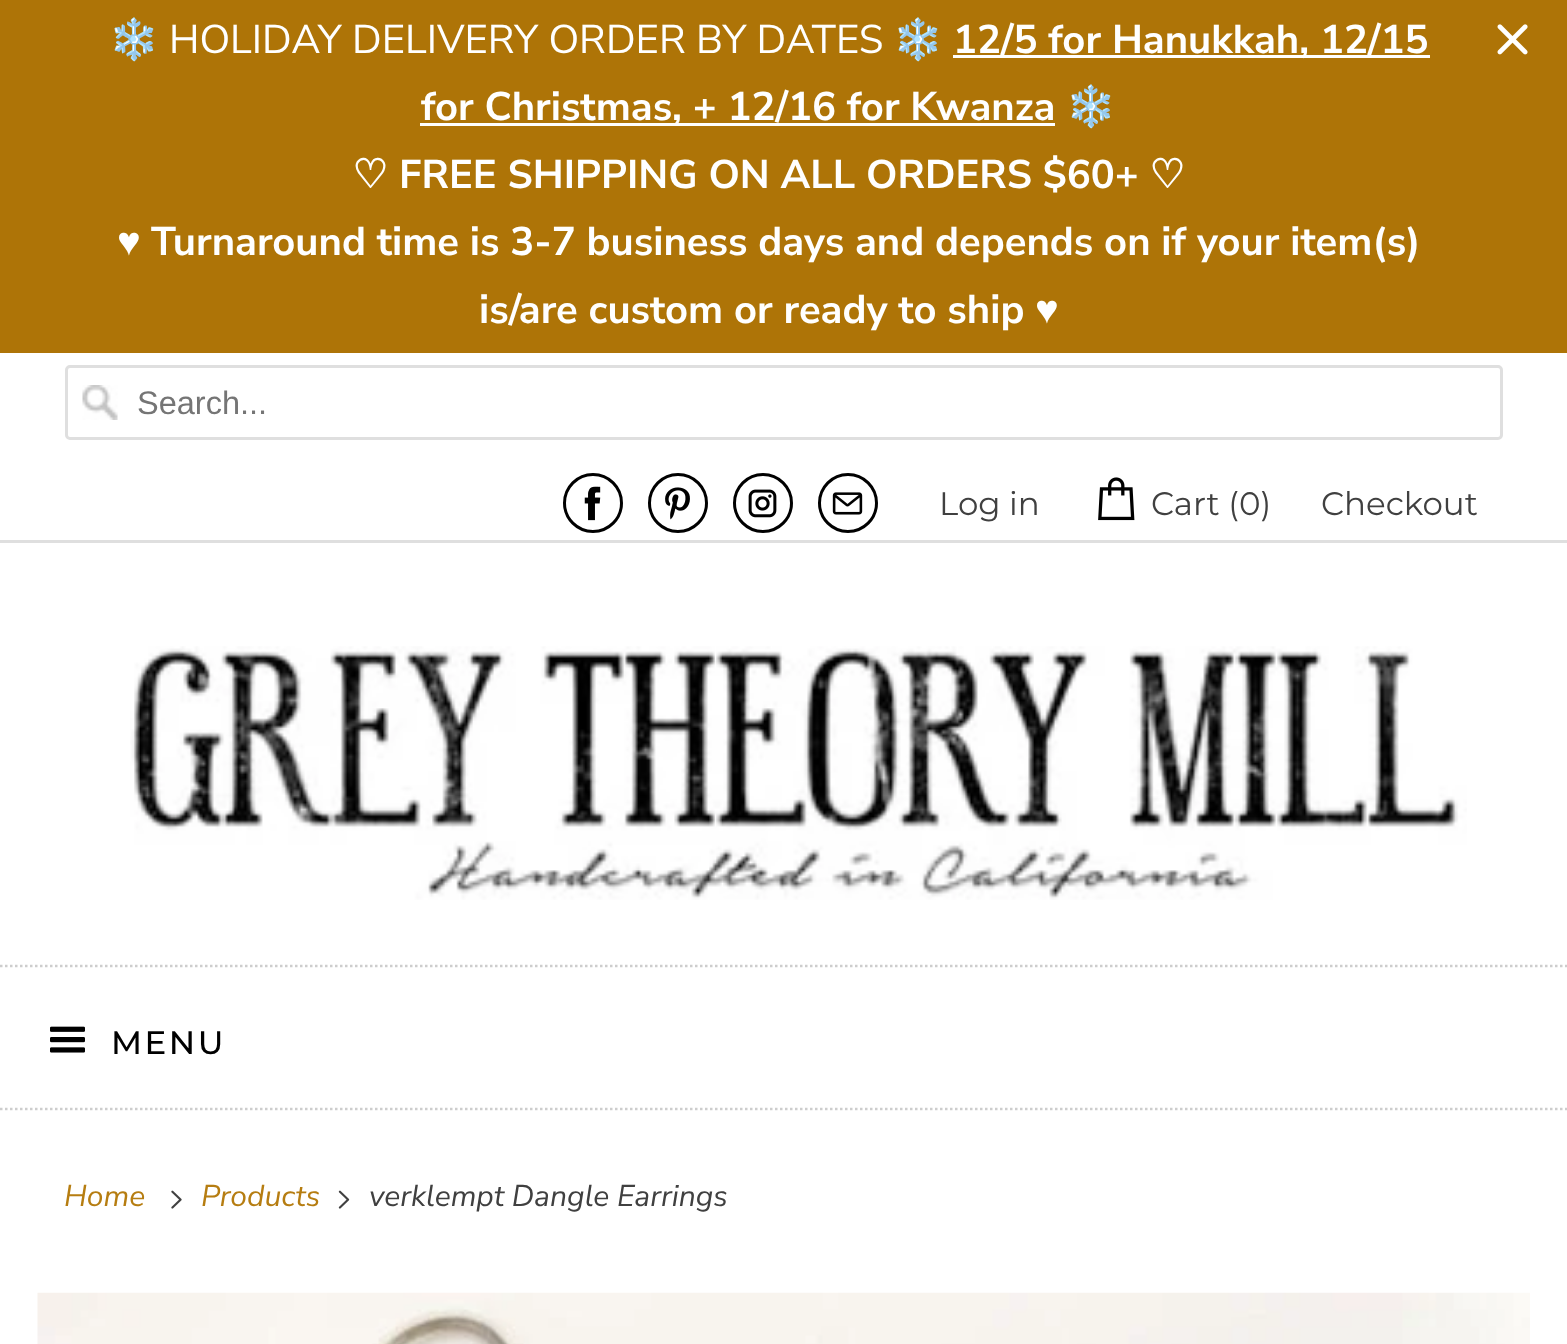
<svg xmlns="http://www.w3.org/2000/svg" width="1567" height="1344">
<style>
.a{font:40px Noto Color Emoji;fill:#fff}
.b{font:40px Nunito Sans;fill:#fff}
.c{font:bold 40px Nunito Sans;fill:#fff}
.d{font:bold 40px Noto Color Emoji;fill:#fff}
.e{font:bold 40px DejaVu Sans;fill:#fff}
.f{font:bold 40px Liberation Sans;fill:#fff}
.g{font:32.5px Liberation Sans;fill:#757575}
.h{font:32.5px Montserrat;fill:#404040}
.i{font:500 32.5px Montserrat;letter-spacing:2.5px;fill:#000}
.j{font:italic 30px Nunito Sans;fill:#b67d11}
.k{font:italic 30px Nunito Sans;fill:#404040}
</style>
<rect width="100%" height="100%" fill="#fff"/>
<path fill="#ae7407" d="M0 0h1567v353H0z"/>
<path fill="#fff" d="M953 55h477v3H953z"/>
<path fill="#fff" d="M420 123h635v3H420z"/>
<image href="1.png" x="1497" y="24" width="31" height="31"/>
<path fill="#dfdfdf" d="M0 540h1567v3H0z"/>
<image href="2.png" x="82" y="385" width="36" height="35"/>
<rect fill="none" stroke="#dfdfdf" stroke-width="3" x="66.5" y="366.5" width="1435" height="72" rx="3.5"/>
<circle fill="none" stroke="#000" stroke-width="3" cx="593" cy="503" r="28.5"/>
<image href="3.png" x="584" y="486" width="17" height="35"/>
<circle fill="none" stroke="#000" stroke-width="3" cx="678" cy="503" r="28.5"/>
<image href="4.png" x="665" y="487" width="25" height="33"/>
<circle fill="none" stroke="#000" stroke-width="3" cx="763" cy="503" r="28.5"/>
<image href="5.png" x="748" y="489" width="29" height="29"/>
<circle fill="none" stroke="#000" stroke-width="3" cx="848" cy="503" r="28.5"/>
<image href="6.png" x="832" y="492" width="31" height="23"/>
<image href="7.png" x="1098" y="477" width="37" height="44"/>
<image href="8.png" x="130" y="646" width="1337" height="254"/>
<path fill="none" stroke="#cdcdcd" stroke-width="2.5" stroke-dasharray="2.5 2.5" d="M0 966h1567.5"/>
<path fill="none" stroke="#cdcdcd" stroke-width="2.5" stroke-dasharray="2.5 2.5" d="M0 1109h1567.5"/>
<image href="9.png" x="50" y="1026" width="35" height="27"/>
<image href="10.png" x="171" y="1190" width="11" height="19"/>
<image href="11.png" x="338" y="1190" width="12" height="19"/>
<image href="12.png" x="37" y="1292" width="1493" height="52"/>
<text class="a" x="109" y="53">❄️</text>
<text class="b" x="169" y="53">HOLIDAY DELIVERY ORDER BY DATES</text>
<text class="a" x="893" y="53">❄️</text>
<text class="c" x="953" y="53">12/5 for Hanukkah, 12/15</text>
<text class="c" x="421" y="120">for Christmas, + 12/16 for Kwanza</text>
<text class="d" x="1066" y="120">❄️</text>
<text class="e" x="352" y="188">♡</text>
<text class="c" x="399" y="188">FREE SHIPPING ON ALL ORDERS $60+</text>
<text class="e" x="1149" y="188">♡</text>
<text class="f" x="117" y="255">♥︎</text>
<text class="c" x="151" y="255">Turnaround time is 3-7 business days and depends on if your item(s)</text>
<text class="c" x="479" y="323">is/are custom or ready to ship</text>
<text class="f" x="1035" y="323">♥︎</text>
<text class="g" x="137" y="414">Search...</text>
<text class="h" x="939" y="515">Log in</text>
<text class="h" x="1151" y="515">Cart (0)</text>
<text class="h" x="1321" y="515">Checkout</text>
<text class="i" x="111" y="1054">MENU</text>
<text class="j" x="64" y="1206">Home</text>
<text class="j" x="201" y="1206">Products</text>
<text class="k" x="369" y="1206">verklempt Dangle Earrings</text>
</svg>
